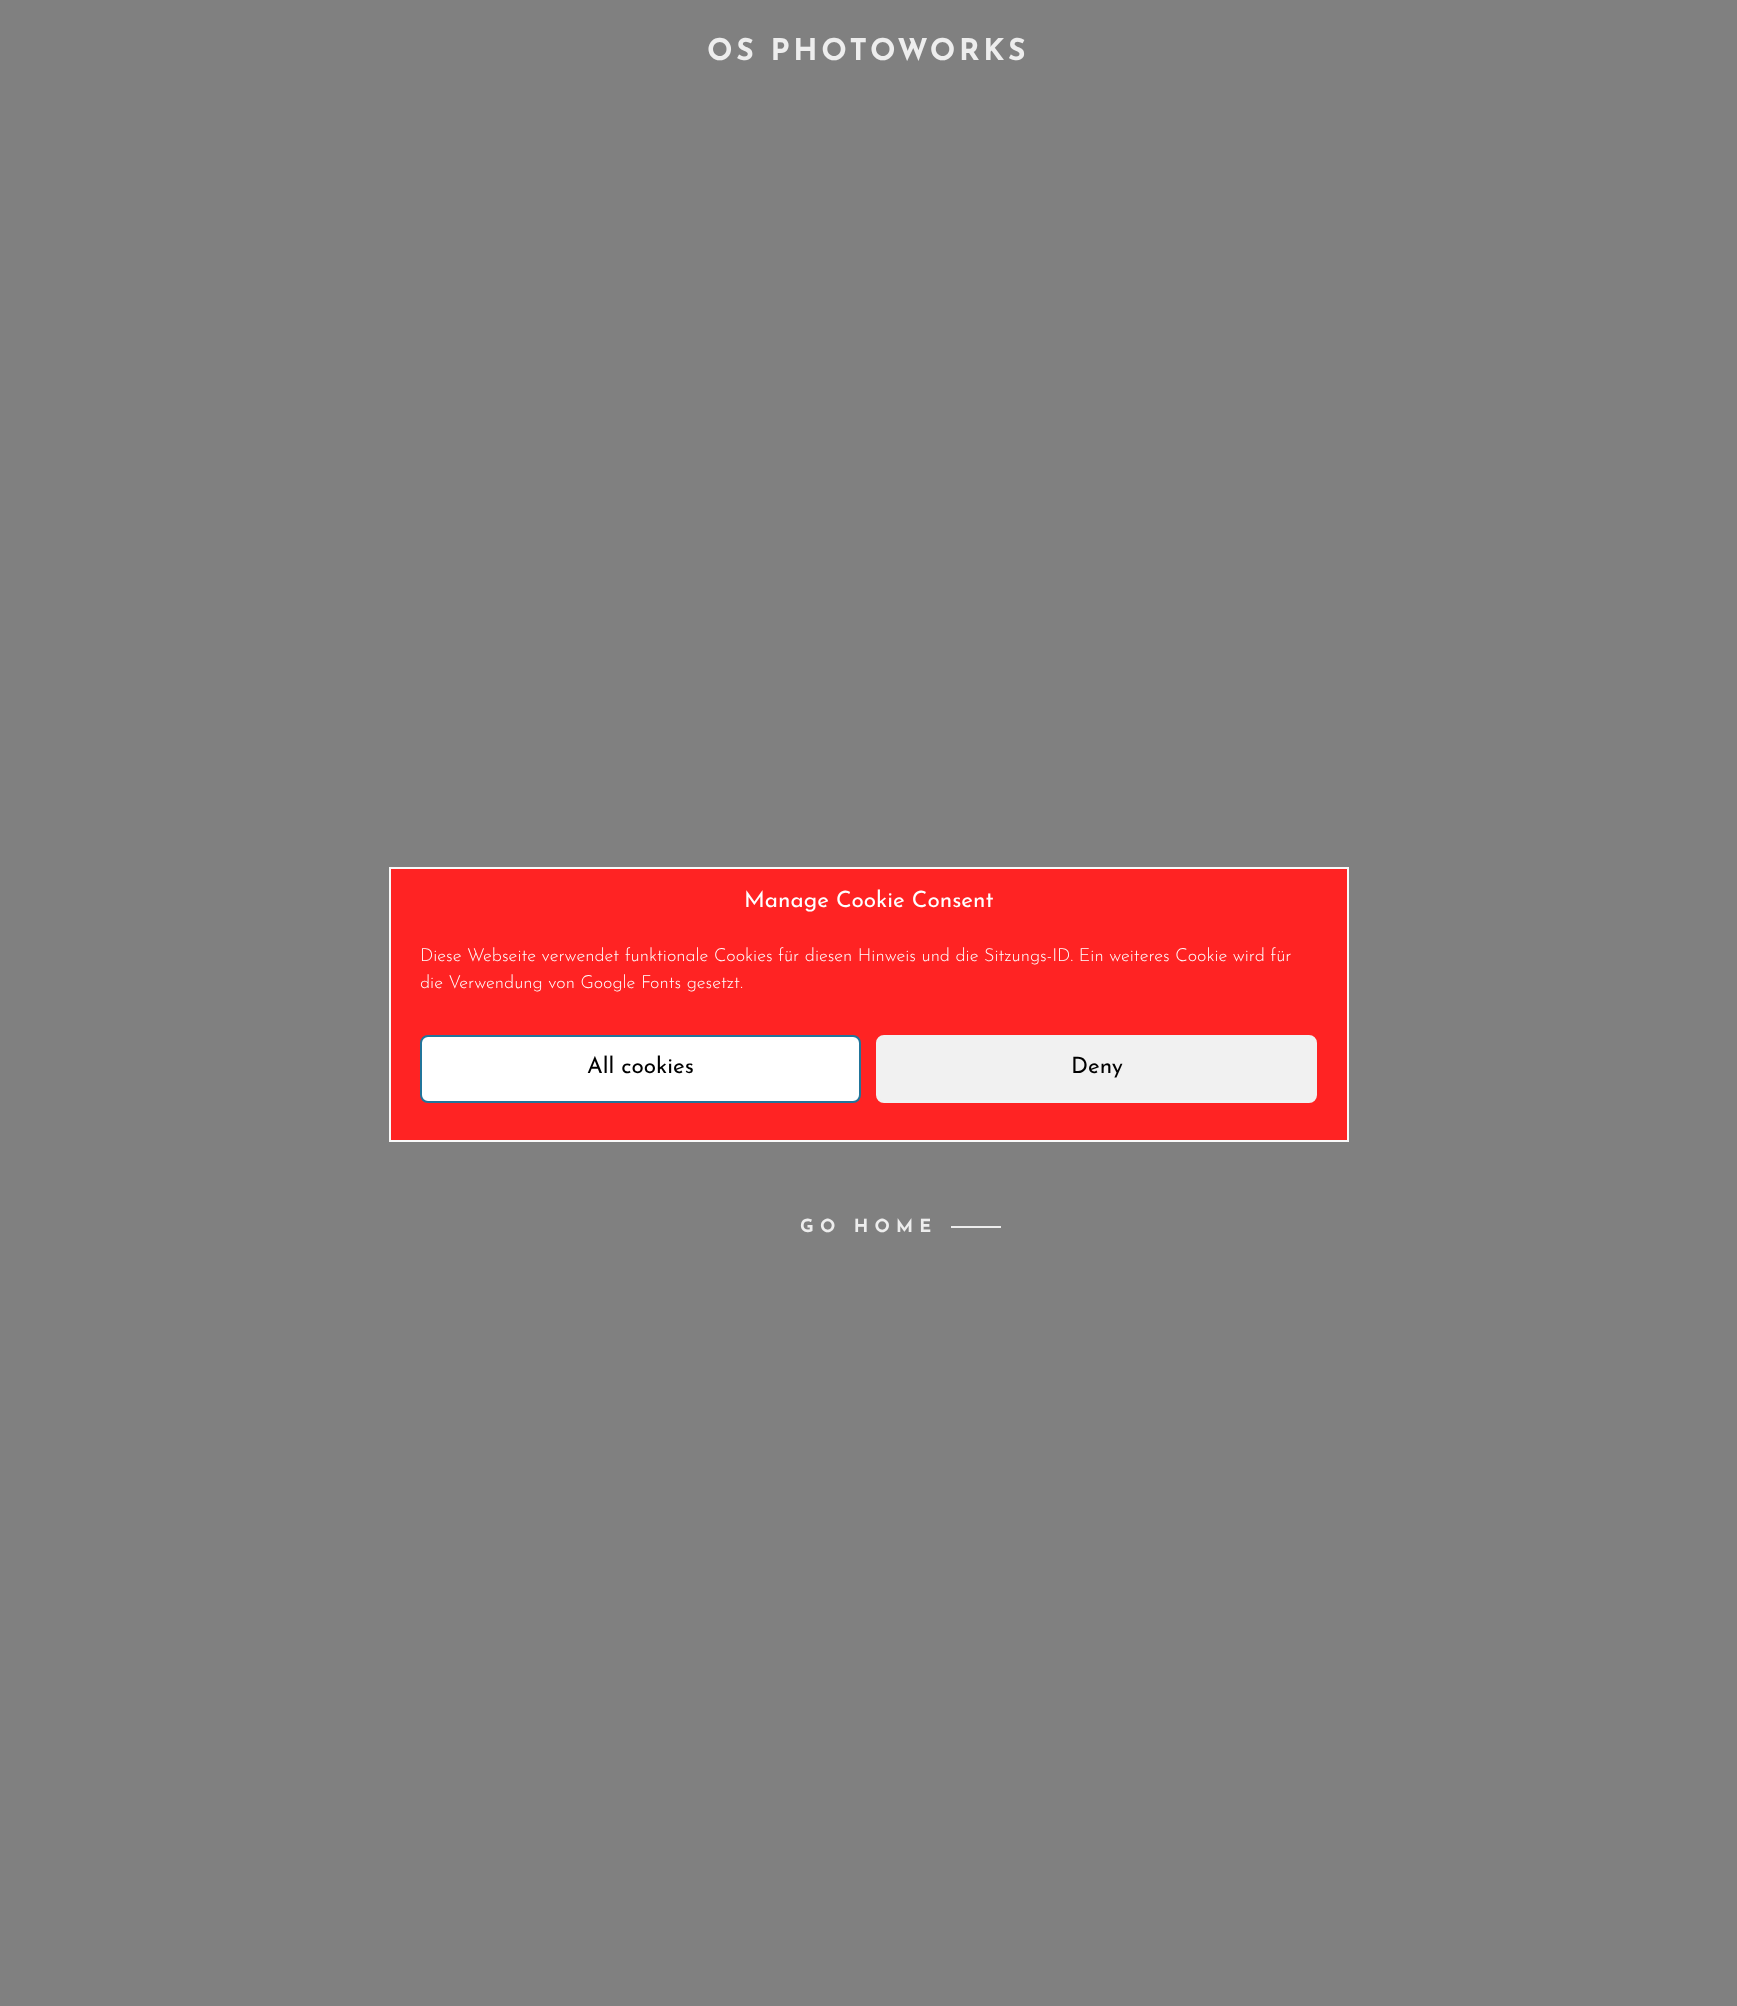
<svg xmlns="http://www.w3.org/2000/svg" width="1737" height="2006">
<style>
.a{font:bold 30px Josefin Sans;letter-spacing:3.6px;fill:#ededed}
.b{font:bold 18px Josefin Sans;letter-spacing:6.25px;fill:#ededed}
.c{font:22.5px Josefin Sans;fill:#fff}
.d{font:300 18px Josefin Sans;fill:#fff}
.e{font:22.5px Josefin Sans;fill:#000}
</style>
<rect width="100%" height="100%" fill="#808080"/>
<path fill="#ededed" d="M951 1226h50v2H951z"/>
<path fill="#ff2323" stroke="#f9f9f9" stroke-width="2" d="M390 868h958v273H390z"/>
<rect fill="#fff" stroke="#21759b" stroke-width="2" x="421" y="1036" width="439" height="66" rx="7"/>
<rect fill="#f1f1f1" stroke="#f1f1f1" stroke-width="2" x="877" y="1036" width="439" height="66" rx="7"/>
<text class="a" x="707" y="60">OS PHOTOWORKS</text>
<text class="b" x="800" y="1232">GO HOME</text>
<text class="c" x="744" y="907">Manage Cookie Consent</text>
<text class="d" x="420" y="961">Diese Webseite verwendet funktionale Cookies für diesen Hinweis und die Sitzungs-ID. Ein weiteres Cookie wird für</text>
<text class="d" x="420" y="988">die Verwendung von Google Fonts gesetzt.</text>
<text class="e" x="587" y="1073">All cookies</text>
<text class="e" x="1071" y="1073">Deny</text>
</svg>
